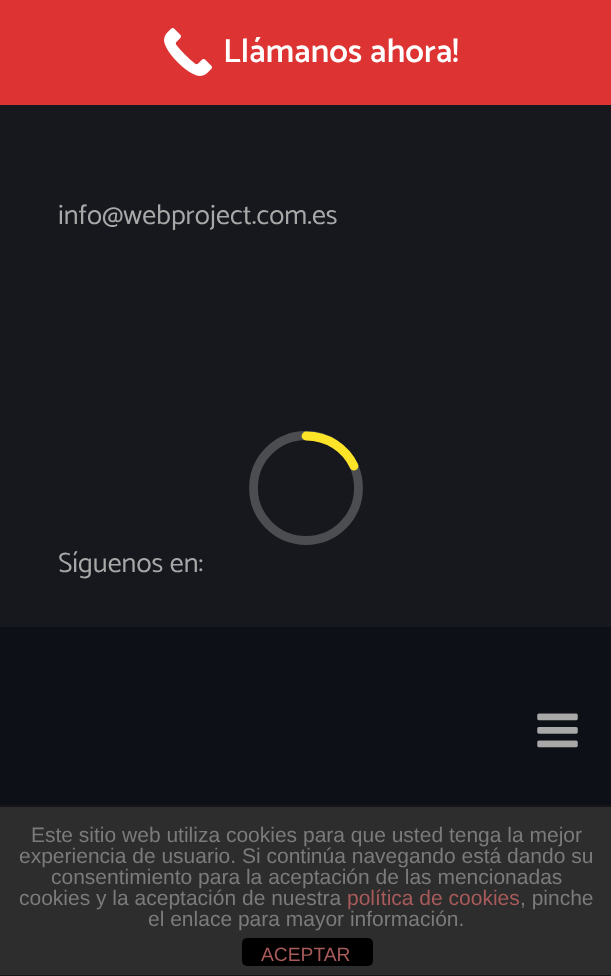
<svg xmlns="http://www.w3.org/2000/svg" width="611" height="976">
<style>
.a{font:600 33.5px Catamaran;fill:#fff}
.b{font:28px Catamaran;fill:#a8a8a8}
.c{font:21px Liberation Sans;fill:#7b7b7b}
.d{font:21px Liberation Sans;fill:#a85a5a}
.e{font:19.25px Liberation Sans;fill:#a85a5a}
</style>
<rect width="100%" height="100%" fill="#16181e"/>
<path fill="#d33" d="M0 0h611v105H0z"/>
<image href="1.png" x="164" y="28" width="48" height="48"/>
<path fill="#0e1017" d="M0 627h611v178H0z"/>
<image href="2.png" x="537" y="713" width="41" height="35"/>
<circle fill="none" stroke="#4b4d51" stroke-width="8.8" cx="306" cy="488" r="52.5"/>
<path fill="none" stroke="#fde428" stroke-width="8.8" stroke-linecap="round" d="M306 436c21.5 0 39.5 12 48 30"/>
<path fill="#2d2d2d" d="M0 807h611v168H0z"/>
<path fill="#161616" d="M0 805h611v2H0z"/>
<path fill="#161616" d="M0 975h611v1H0z"/>
<rect fill="#000" x="242" y="938" width="131" height="28" rx="5"/>
<text class="a" x="223" y="62">Llámanos ahora!</text>
<text class="b" x="58" y="224">info@webproject.com.es</text>
<text class="b" x="58" y="572">Síguenos en:</text>
<text class="c" x="31" y="842">Este sitio web utiliza cookies para que usted tenga la mejor</text>
<text class="c" x="19" y="863">experiencia de usuario. Si continúa navegando está dando su</text>
<text class="c" x="51" y="884">consentimiento para la aceptación de las mencionadas</text>
<text class="c" x="19" y="905">cookies y la aceptación de nuestra</text>
<text class="d" x="347" y="905">política de cookies</text>
<text class="c" x="520" y="905">, pinche</text>
<text class="c" x="148" y="926">el enlace para mayor información.</text>
<text class="e" x="261" y="961">ACEPTAR</text>
</svg>
